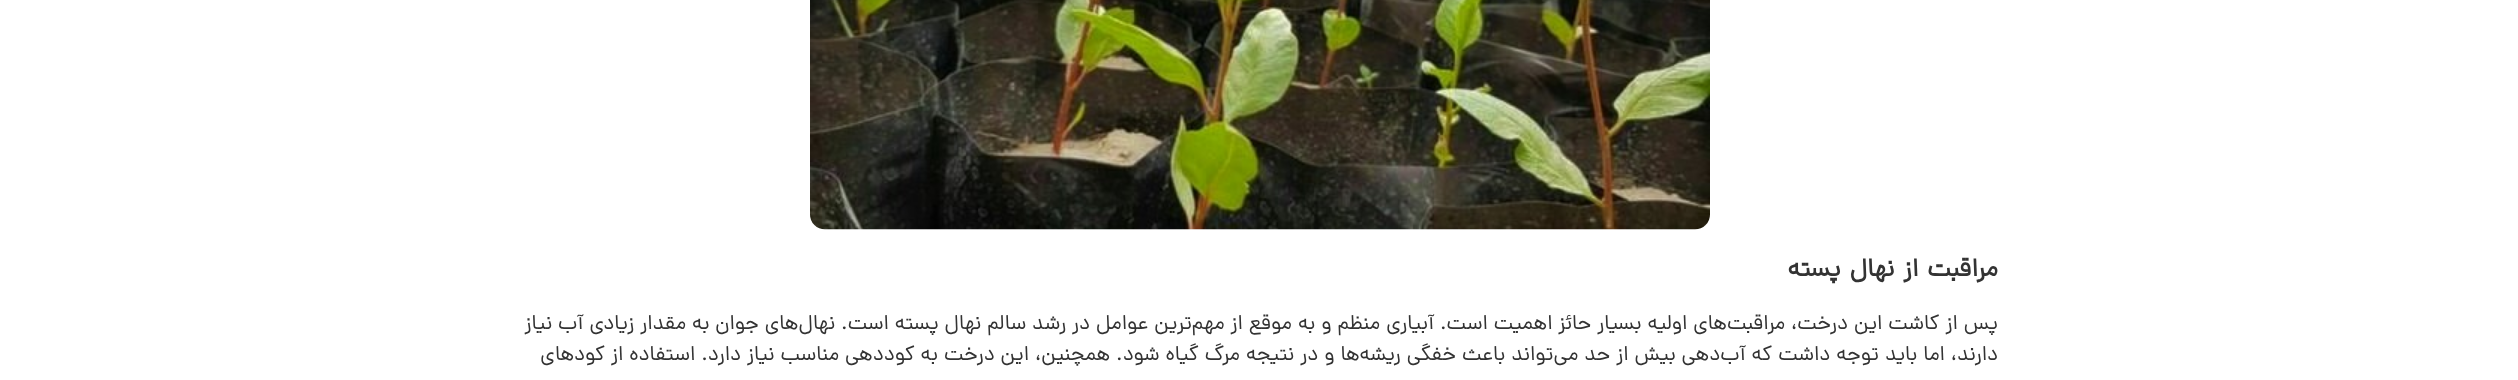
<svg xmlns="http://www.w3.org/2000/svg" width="2518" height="380">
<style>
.a{font:bold 25.5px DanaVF;direction:rtl;fill:#333}
.b{font:21px DanaVF;direction:rtl;fill:#333}
</style>
<rect width="100%" height="100%" fill="#fff"/>
<image href="1.png" x="810" y="0" width="900" height="230"/>
<text class="a" x="1998" y="276" word-spacing="2.5">مراقبت از نهال پسته</text>
<text class="b" x="1998" y="329" word-spacing="0.55">پس از کاشت این درخت، مراقبت‌های اولیه بسیار حائز اهمیت است. آبیاری منظم و به موقع از مهم‌ترین عوامل در رشد سالم نهال پسته است. نهال‌های جوان به مقدار زیادی آب نیاز</text>
<text class="b" x="1998" y="360" word-spacing="0.55">دارند، اما باید توجه داشت که آب‌دهی بیش از حد می‌تواند باعث خفگی ریشه‌ها و در نتیجه مرگ گیاه شود. همچنین، این درخت به کوددهی مناسب نیاز دارد. استفاده از کودهای</text>
</svg>
